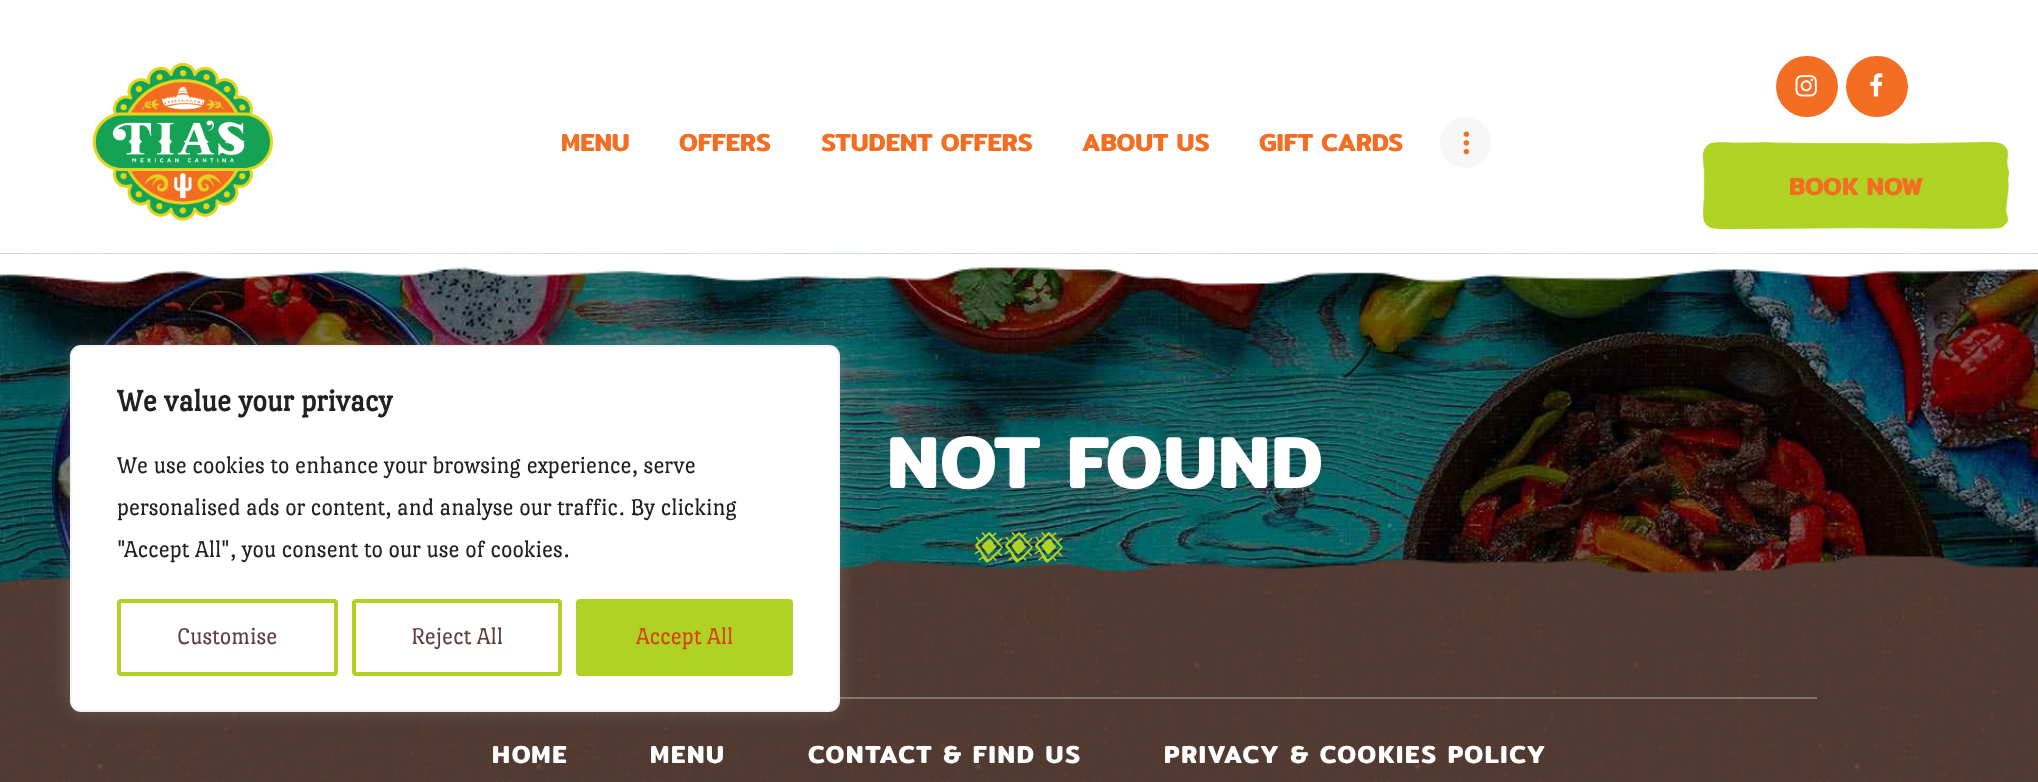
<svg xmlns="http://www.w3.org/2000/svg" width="2038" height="782">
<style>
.a{font:bold 31.5px Port Lligat Slab;fill:#212121}
.b{font:24.5px Port Lligat Slab;fill:#212121}
.c{font:24.5px Port Lligat Slab;fill:#613e3e}
.d{font:24.5px Port Lligat Slab;fill:#da3d07}
.e{font:600 24.9px Mitr;fill:#f36e22}
.f{font:600 74.75px Mitr;letter-spacing:0.9px;fill:#fff}
.g{font:600 24.9px Mitr;letter-spacing:1.75px;fill:#fff}
</style>
<rect width="100%" height="100%" fill="#fff"/>
<image href="6.png" x="0" y="253" width="2038" height="332"/>
<image href="9.png" x="0" y="589" width="2038" height="193"/>
<image href="8.png" x="974" y="532" width="89" height="31"/>
<image href="10.png" x="0" y="554" width="2038" height="36"/>
<path fill="#83736d" d="M840 697h977v2H840z"/>
<rect fill="#acabab4d" filter="blur(9px)" x="70" y="343" width="770" height="368" rx="11"/>
<rect fill="#fff" stroke="#f4f4f4" stroke-width="2" x="71" y="346" width="768" height="365" rx="10"/>
<rect fill="none" stroke="#b0d225" stroke-width="4" x="119" y="601" width="217" height="73" rx="2"/>
<rect fill="none" stroke="#b0d225" stroke-width="4" x="354" y="601" width="206" height="73" rx="2"/>
<rect fill="#b0d225" stroke="#b0d225" stroke-width="4" x="578" y="601" width="213" height="73" rx="2"/>
<image href="1.png" x="92" y="63" width="181" height="158"/>
<circle fill="#f7f7f7" cx="1465.5" cy="142.5" r="25.5"/>
<image href="2.png" x="1463" y="131" width="7" height="24"/>
<rect fill="#f36e22" x="1776" y="56" width="62" height="61" rx="30.5"/>
<image href="3.png" x="1795" y="75" width="22" height="22"/>
<rect fill="#f36e22" x="1846" y="56" width="62" height="61" rx="30.5"/>
<image href="4.png" x="1870" y="73" width="13" height="24"/>
<image href="5.png" x="1702" y="141" width="307" height="89"/>
<image href="7.png" x="0" y="253" width="2038" height="33"/>
<text class="a" x="117" y="411">We value your privacy</text>
<text class="b" x="117" y="473">We use cookies to enhance your browsing experience, serve</text>
<text class="b" x="117" y="515">personalised ads or content, and analyse our traffic. By clicking</text>
<text class="b" x="117" y="557">"Accept All", you consent to our use of cookies.</text>
<text class="c" x="177" y="644">Customise</text>
<text class="c" x="411" y="644">Reject All</text>
<text class="d" x="636" y="644">Accept All</text>
<text class="e" x="561" y="151">MENU</text>
<text class="e" x="679" y="151">OFFERS</text>
<text class="e" x="821" y="151">STUDENT OFFERS</text>
<text class="e" x="1082" y="151">ABOUT US</text>
<text class="e" x="1259" y="151">GIFT CARDS</text>
<text class="e" x="1789" y="195">BOOK NOW</text>
<text class="f" x="887" y="488">NOT FOUND</text>
<text class="g" x="492" y="763">HOME</text>
<text class="g" x="650" y="763">MENU</text>
<text class="g" x="808" y="763">CONTACT &amp; FIND US</text>
<text class="g" x="1164" y="763">PRIVACY &amp; COOKIES POLICY</text>
</svg>
